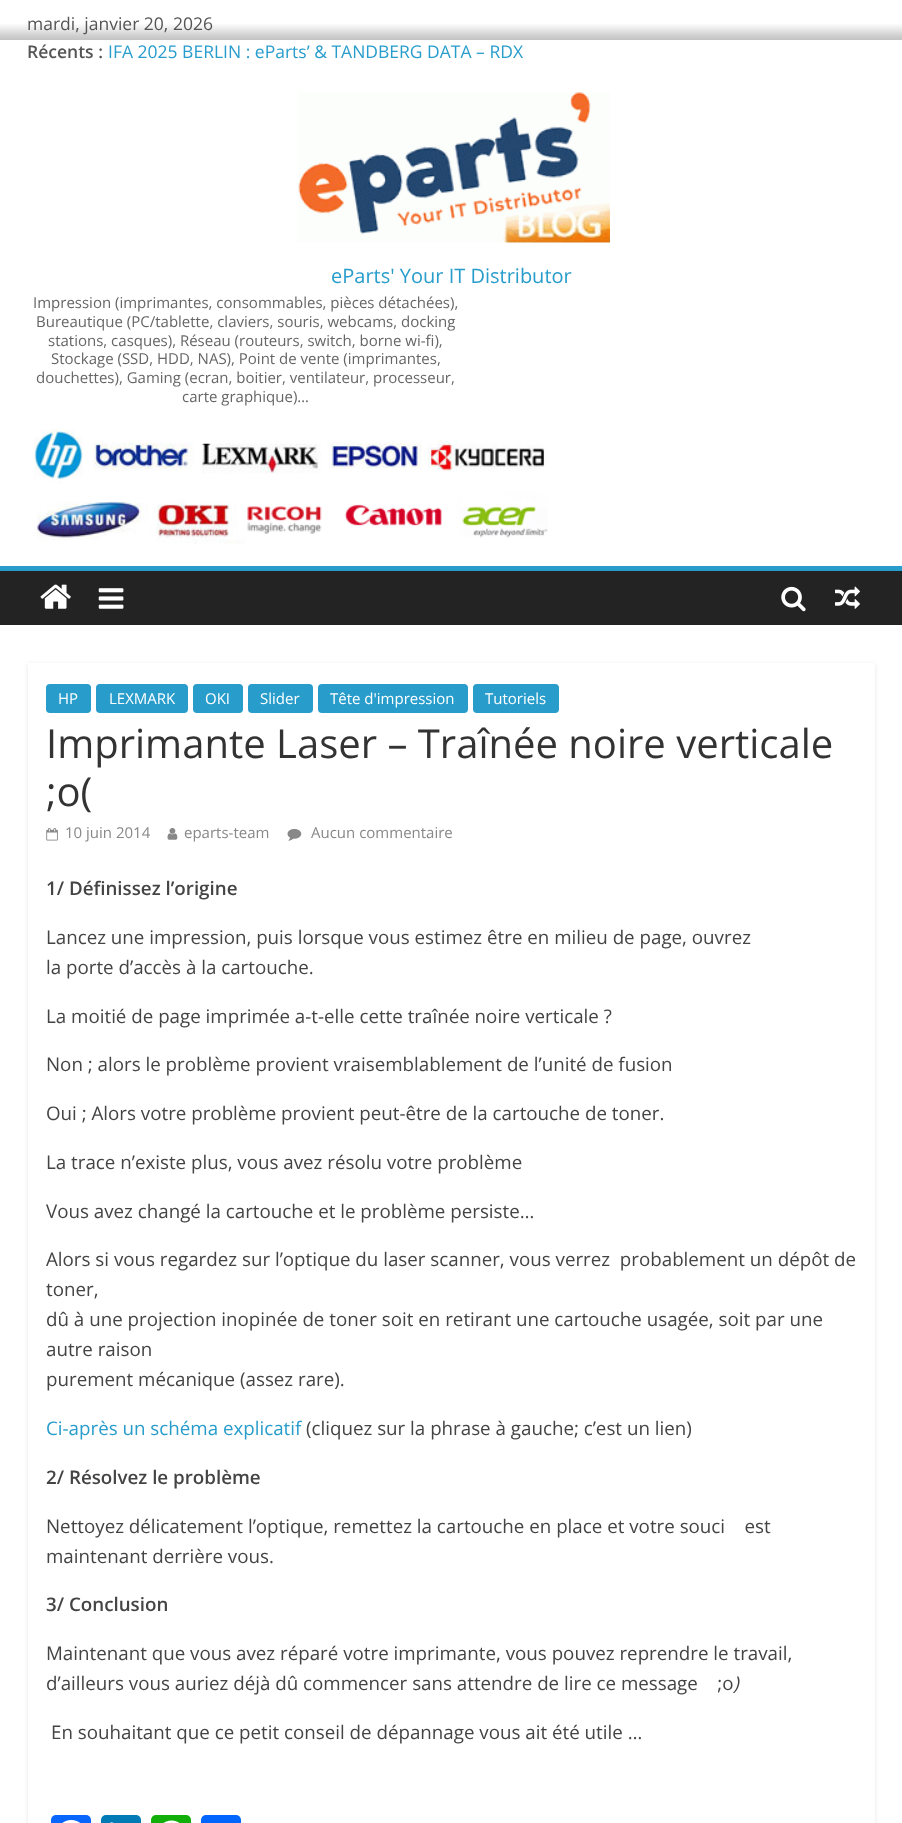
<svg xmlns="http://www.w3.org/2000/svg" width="902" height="1823">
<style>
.a{font:17.5px Open Sans;fill:#555}
.b{font:600 17.5px Open Sans;fill:#555}
.c{font:17.5px Open Sans;fill:#289dcc}
.d{font:20px Open Sans;fill:#289dcc}
.e{font:15px Open Sans;fill:#666}
.f{font:15px Open Sans;fill:#fff}
.g{font:40px Open Sans;fill:#333}
.h{font:15px Open Sans;fill:#888}
.i{font:600 18.75px Open Sans;fill:#444}
.j{font:18.75px Open Sans;fill:#444}
.k{font:18.75px Open Sans;fill:#289dcc}
.l{font:italic 18.75px Open Sans;fill:#444}
</style>
<defs>
<clipPath id="clip1"><path d="M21 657h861v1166h-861zm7 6h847v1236h-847z" clip-rule="evenodd"/></clipPath>
</defs>
<rect width="100%" height="100%" fill="#fff"/>
<image href="1.png" x="0" y="24" width="902" height="16"/>
<image href="2.png" x="298" y="92" width="312" height="151"/>
<image href="3.png" x="34" y="429" width="514" height="115"/>
<path fill="#232323" d="M0 571h902v54H0z"/>
<path fill="#289dcc" d="M0 566h902v5H0z"/>
<image href="4.png" x="40" y="584" width="31" height="25"/>
<image href="5.png" x="98" y="588" width="26" height="21"/>
<image href="6.png" x="781" y="586" width="25" height="26"/>
<image href="7.png" x="835" y="586" width="25" height="23"/>
<g clip-path="url(#clip1)">
<path fill="#0000001a" filter="blur(2px)" d="M28 664h847v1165H28z"/>
</g>
<rect fill="#289dcc" x="46" y="684" width="45" height="29" rx="4"/>
<rect fill="#289dcc" x="96" y="684" width="92" height="29" rx="4"/>
<rect fill="#289dcc" x="193" y="684" width="50" height="29" rx="4"/>
<rect fill="#289dcc" x="248" y="684" width="65" height="29" rx="4"/>
<rect fill="#289dcc" x="318" y="684" width="150" height="29" rx="4"/>
<rect fill="#289dcc" x="473" y="684" width="86" height="29" rx="4"/>
<image href="8.png" x="46" y="828" width="12" height="13"/>
<image href="9.png" x="167" y="828" width="11" height="12"/>
<image href="10.png" x="287" y="828" width="15" height="13"/>
<rect fill="#0866ff" x="51" y="1815" width="40" height="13" rx="5"/>
<image href="11.png" x="62" y="1820" width="18" height="3"/>
<rect fill="#007bb5" x="101" y="1815" width="40" height="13" rx="5"/>
<image href="12.png" x="110" y="1822" width="4" height="1"/>
<rect fill="#12af0a" x="151" y="1815" width="40" height="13" rx="5"/>
<image href="13.png" x="163" y="1820" width="17" height="3"/>
<rect fill="#0166ff" x="201" y="1815" width="40" height="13" rx="5"/>
<text class="a" x="27" y="30">mardi, janvier 20, 2026</text>
<text class="b" x="27" y="58">Récents :</text>
<text class="c" x="108" y="58">IFA 2025 BERLIN : eParts’ &amp; TANDBERG DATA – RDX</text>
<text class="d" x="331" y="283">eParts' Your IT Distributor</text>
<text class="e" x="33" y="308">Impression (imprimantes, consommables, pièces détachées),</text>
<text class="e" x="36" y="327">Bureautique (PC/tablette, claviers, souris, webcams, docking</text>
<text class="e" x="48" y="346">stations, casques), Réseau (routeurs, switch, borne wi-fi),</text>
<text class="e" x="51" y="364">Stockage (SSD, HDD, NAS), Point de vente (imprimantes,</text>
<text class="e" x="36" y="383">douchettes), Gaming (ecran, boitier, ventilateur, processeur,</text>
<text class="e" x="182" y="402">carte graphique)…</text>
<text class="f" x="58" y="704">HP</text>
<text class="f" x="109" y="704">LEXMARK</text>
<text class="f" x="205" y="704">OKI</text>
<text class="f" x="260" y="704">Slider</text>
<text class="f" x="330" y="704">Tête d'impression</text>
<text class="f" x="485" y="704">Tutoriels</text>
<text class="g" x="46" y="758">Imprimante Laser – Traînée noire verticale</text>
<text class="g" x="46" y="806">;o(</text>
<text class="h" x="65" y="838">10 juin 2014</text>
<text class="h" x="184" y="838">eparts-team</text>
<text class="h" x="311" y="838">Aucun commentaire</text>
<text class="i" x="46" y="895">1/ Définissez l’origine</text>
<text class="j" x="46" y="944">Lancez une impression, puis lorsque vous estimez être en milieu de page, ouvrez</text>
<text class="j" x="46" y="974">la porte d’accès à la cartouche.</text>
<text class="j" x="46" y="1023">La moitié de page imprimée a-t-elle cette traînée noire verticale ?</text>
<text class="j" x="46" y="1071">Non ; alors le problème provient vraisemblablement de l’unité de fusion</text>
<text class="j" x="46" y="1120">Oui ; Alors votre problème provient peut-être de la cartouche de toner.</text>
<text class="j" x="46" y="1169">La trace n’existe plus, vous avez résolu votre problème</text>
<text class="j" x="46" y="1218">Vous avez changé la cartouche et le problème persiste…</text>
<text class="j" xml:space="preserve" x="46" y="1266">Alors si vous regardez sur l’optique du laser scanner, vous verrez  probablement un dépôt de</text>
<text class="j" x="46" y="1296">toner,</text>
<text class="j" x="46" y="1326">dû à une projection inopinée de toner soit en retirant une cartouche usagée, soit par une</text>
<text class="j" x="46" y="1356">autre raison</text>
<text class="j" x="46" y="1386">purement mécanique (assez rare).</text>
<text class="k" x="46" y="1435">Ci-après un schéma explicatif</text>
<text class="j" x="306" y="1435">(cliquez sur la phrase à gauche; c’est un lien)</text>
<text class="i" x="46" y="1484">2/ Résolvez le problème</text>
<text class="j" xml:space="preserve" x="46" y="1533">Nettoyez délicatement l’optique, remettez la cartouche en place et votre souci    est</text>
<text class="j" x="46" y="1563">maintenant derrière vous.</text>
<text class="i" x="46" y="1611">3/ Conclusion</text>
<text class="j" x="46" y="1660">Maintenant que vous avez réparé votre imprimante, vous pouvez reprendre le travail,</text>
<text class="j" xml:space="preserve" x="46" y="1690">d’ailleurs vous auriez déjà dû commencer sans attendre de lire ce message    ;o</text>
<text class="l" x="733" y="1690">)</text>
<text class="j" x="51" y="1739">En souhaitant que ce petit conseil de dépannage vous ait été utile …</text>
</svg>
